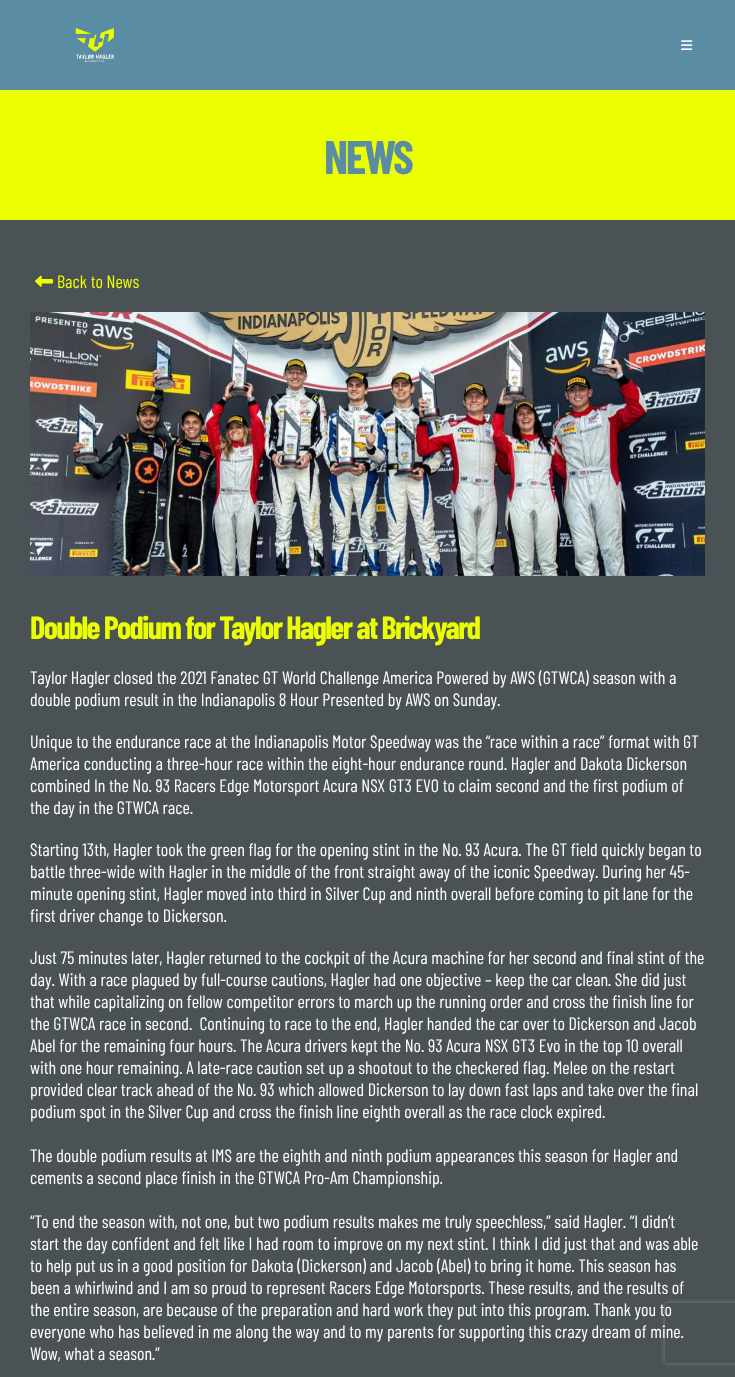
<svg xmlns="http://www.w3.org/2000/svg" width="735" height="1377">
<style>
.a{font:bold 47px Barlow Condensed;letter-spacing:-2.5px;fill:#5a8ca3}
.b{font:18px Barlow Condensed;fill:#ebff00}
.c{font:bold 32px Barlow Condensed;letter-spacing:-1.6px;fill:#ebff00}
.d{font:18px Barlow Condensed;fill:#fff}
</style>
<defs>
<clipPath id="clip1"><path d="M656 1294h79v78h-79zm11 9h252c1 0 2 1 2 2v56c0 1-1 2-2 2h-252c-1 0-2-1-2-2v-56c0-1 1-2 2-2z" clip-rule="evenodd"/></clipPath>
</defs>
<rect width="100%" height="100%" fill="#4b5255"/>
<path fill="#5a8ca3" d="M0 0h735v90H0z"/>
<image href="1.png" x="75" y="27" width="39" height="36"/>
<image href="2.png" x="681" y="40" width="12" height="10"/>
<path fill="#ebff00" d="M0 90h735v130H0z"/>
<image href="3.png" x="35" y="275" width="18" height="12"/>
<image href="4.png" x="30" y="312" width="675" height="264"/>
<g clip-path="url(#clip1)">
<rect fill="#808080" filter="blur(2.5px)" x="665" y="1303" width="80" height="60" rx="2"/>
</g>
<text class="a" x="324" y="174">NEWS</text>
<text class="b" x="57" y="288">Back to News</text>
<text class="c" x="30" y="639">Double Podium for Taylor Hagler at Brickyard</text>
<text class="d" x="30" y="684">Taylor Hagler closed the 2021 Fanatec GT World Challenge America Powered by AWS (GTWCA) season with a</text>
<text class="d" x="30" y="706">double podium result in the Indianapolis 8 Hour Presented by AWS on Sunday.</text>
<text class="d" x="30" y="748">Unique to the endurance race at the Indianapolis Motor Speedway was the “race within a race” format with GT</text>
<text class="d" x="30" y="770">America conducting a three-hour race within the eight-hour endurance round. Hagler and Dakota Dickerson</text>
<text class="d" x="30" y="792">combined In the No. 93 Racers Edge Motorsport Acura NSX GT3 EVO to claim second and the first podium of</text>
<text class="d" x="30" y="814">the day in the GTWCA race.</text>
<text class="d" x="30" y="856">Starting 13th, Hagler took the green flag for the opening stint in the No. 93 Acura. The GT field quickly began to</text>
<text class="d" x="30" y="878">battle three-wide with Hagler in the middle of the front straight away of the iconic Speedway. During her 45-</text>
<text class="d" x="30" y="900">minute opening stint, Hagler moved into third in Silver Cup and ninth overall before coming to pit lane for the</text>
<text class="d" x="30" y="922">first driver change to Dickerson.</text>
<text class="d" x="30" y="964">Just 75 minutes later, Hagler returned to the cockpit of the Acura machine for her second and final stint of the</text>
<text class="d" x="30" y="986">day. With a race plagued by full-course cautions, Hagler had one objective – keep the car clean. She did just</text>
<text class="d" x="30" y="1008">that while capitalizing on fellow competitor errors to march up the running order and cross the finish line for</text>
<text class="d" xml:space="preserve" x="30" y="1030">the GTWCA race in second.  Continuing to race to the end, Hagler handed the car over to Dickerson and Jacob</text>
<text class="d" x="30" y="1052">Abel for the remaining four hours. The Acura drivers kept the No. 93 Acura NSX GT3 Evo in the top 10 overall</text>
<text class="d" x="30" y="1074">with one hour remaining. A late-race caution set up a shootout to the checkered flag. Melee on the restart</text>
<text class="d" x="30" y="1096">provided clear track ahead of the No. 93 which allowed Dickerson to lay down fast laps and take over the final</text>
<text class="d" x="30" y="1118">podium spot in the Silver Cup and cross the finish line eighth overall as the race clock expired.</text>
<text class="d" x="30" y="1162">The double podium results at IMS are the eighth and ninth podium appearances this season for Hagler and</text>
<text class="d" x="30" y="1184">cements a second place finish in the GTWCA Pro-Am Championship.</text>
<text class="d" x="30" y="1228">“To end the season with, not one, but two podium results makes me truly speechless,” said Hagler. “I didn’t</text>
<text class="d" x="30" y="1250">start the day confident and felt like I had room to improve on my next stint. I think I did just that and was able</text>
<text class="d" x="30" y="1272">to help put us in a good position for Dakota (Dickerson) and Jacob (Abel) to bring it home. This season has</text>
<text class="d" x="30" y="1294">been a whirlwind and I am so proud to represent Racers Edge Motorsports. These results, and the results of</text>
<text class="d" x="30" y="1316">the entire season, are because of the preparation and hard work they put into this program. Thank you to</text>
<text class="d" x="30" y="1338">everyone who has believed in me along the way and to my parents for supporting this crazy dream of mine.</text>
<text class="d" x="30" y="1360">Wow, what a season.”</text>
</svg>
